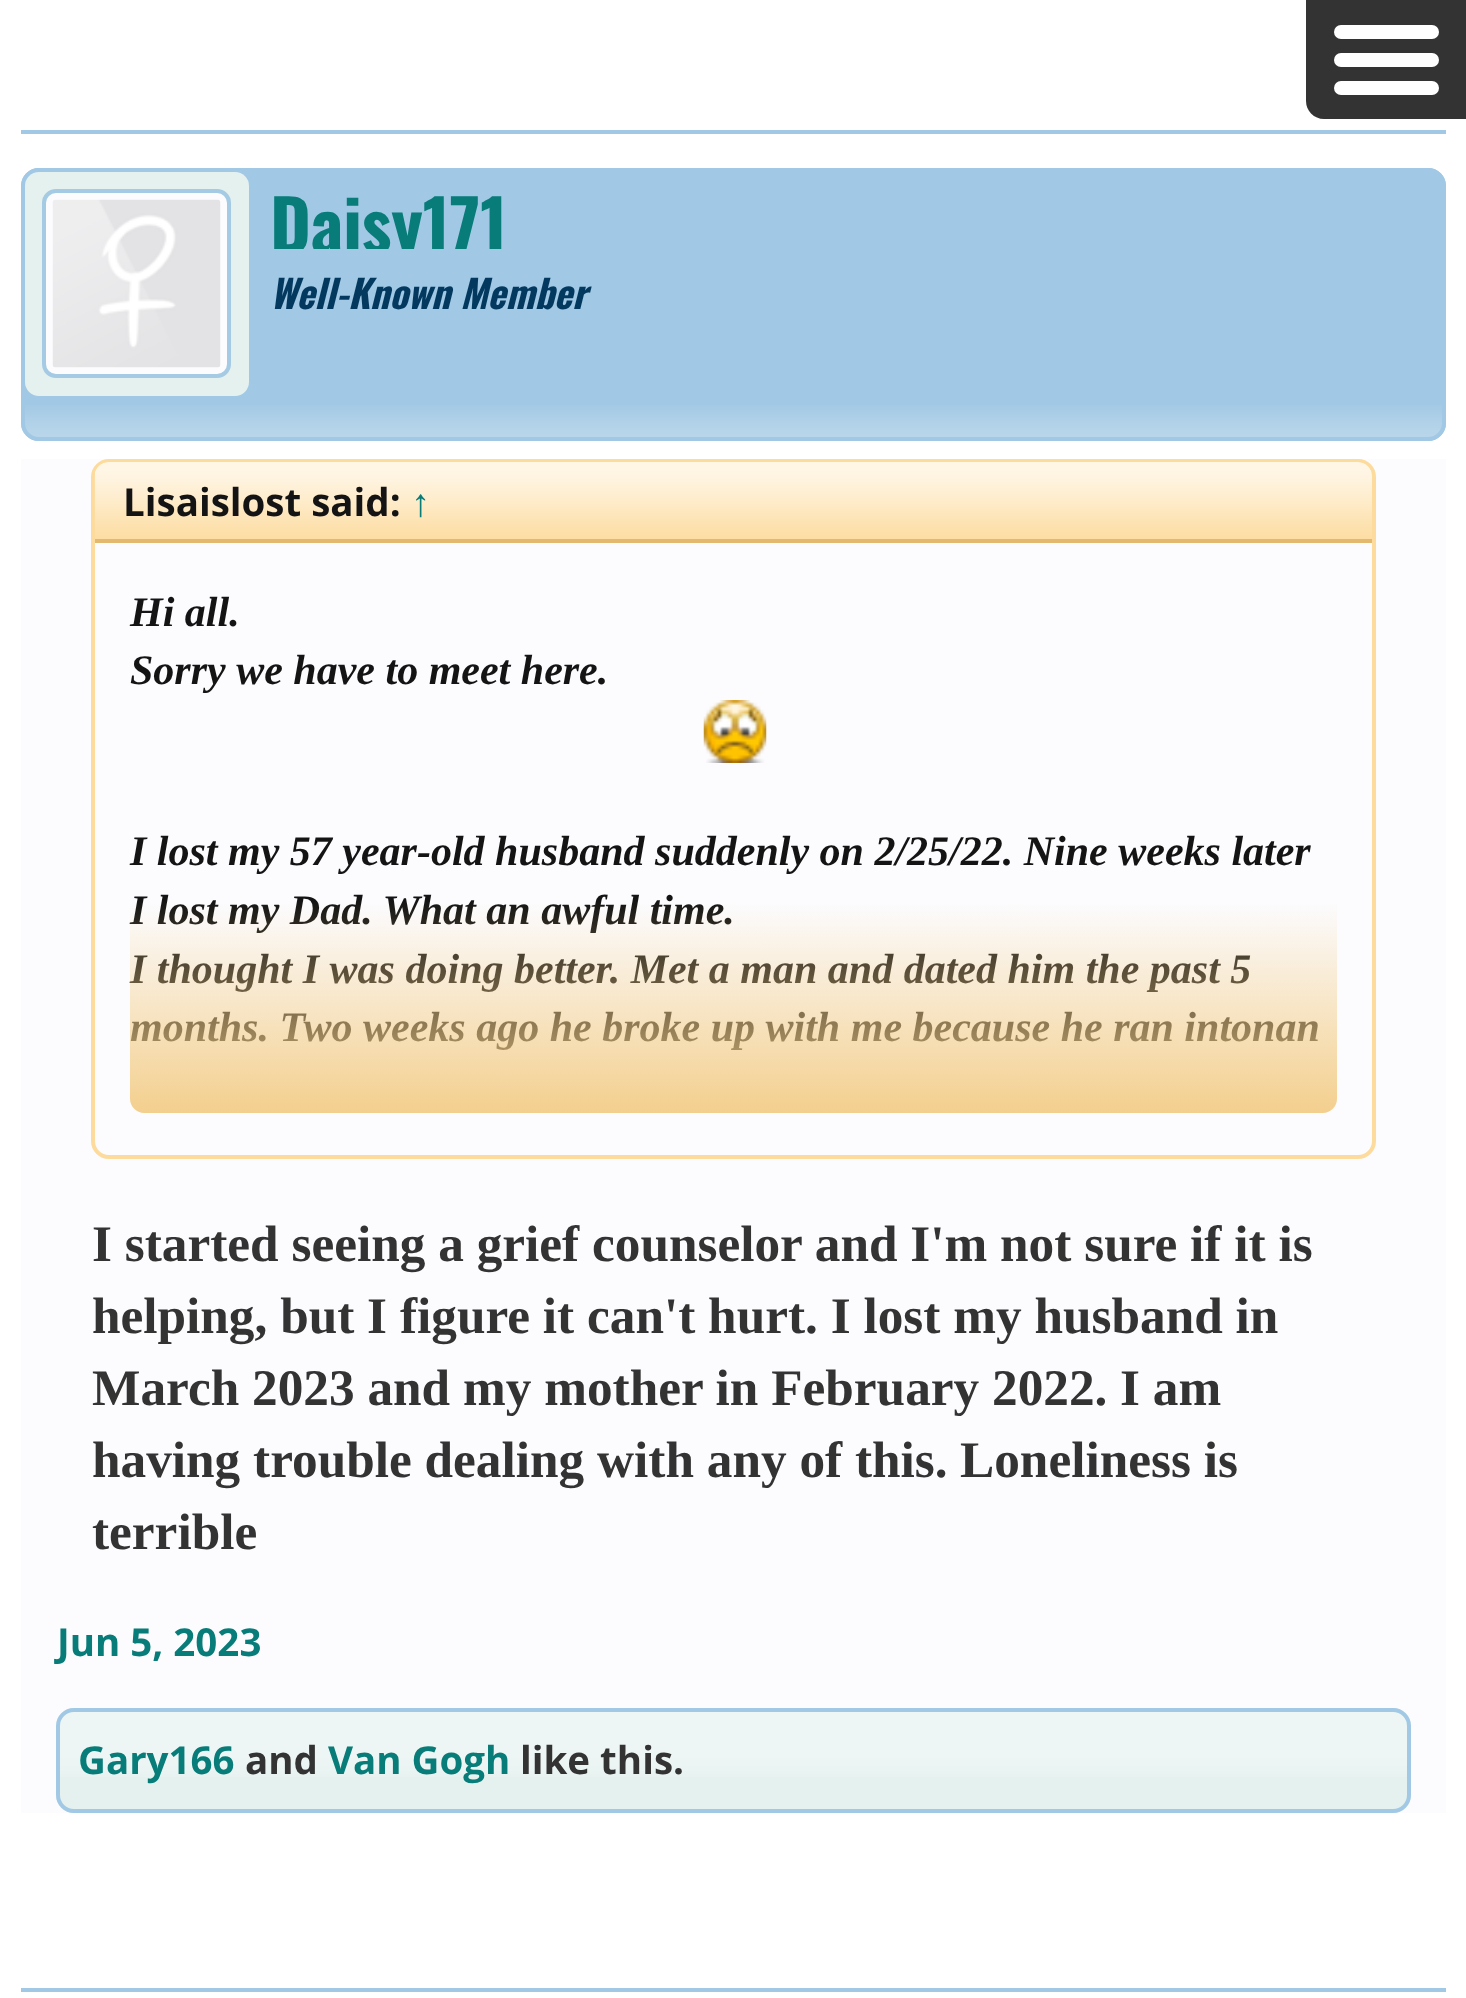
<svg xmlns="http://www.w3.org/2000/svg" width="1466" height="1998">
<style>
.a{font:bold 70px Oswald;fill:#087c78}
.b{font:italic bold 38.5px Oswald;fill:#03395f}
.c{font:bold 38.5px Open Sans;fill:#141414}
.d{font:bold 38.5px Liberation Sans;fill:#087c78}
.e{font:italic bold 42px Liberation Serif;fill:#141414}
.f{font:bold 51.3px Liberation Serif;fill:#333}
.g{font:bold 38.5px Open Sans;fill:#087c78}
.h{font:bold 38.5px Open Sans;fill:#333}
</style>
<defs>
<clipPath id="clip1"><path d="M270 193h1151v56H270z"/></clipPath>
<linearGradient id="g1" gradientUnits="userSpaceOnUse" x1="733" y1="900" x2="733" y2="1180"><stop offset="0" stop-color="#f3cd88" stop-opacity="0"/><stop offset="0.8" stop-color="#f3cd88"/></linearGradient>
</defs>
<rect width="100%" height="100%" fill="#fff"/>
<path fill="#333" d="M1306 0h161v119h-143c-10 0-18-8-18-18z"/>
<rect fill="#fff" x="1334" y="25" width="105" height="14" rx="7"/>
<rect fill="#fff" x="1334" y="53" width="105" height="14" rx="7"/>
<rect fill="#fff" x="1334" y="81" width="105" height="14" rx="7"/>
<path fill="#a1c8e4" d="M21 130h1425v4H21z"/>
<rect fill="#a1c8e4" x="21" y="168" width="1425" height="273" rx="18"/>
<image href="1.png" x="21" y="405" width="1425" height="33"/>
<rect fill="none" stroke="#a1c8e4" stroke-width="4" x="23" y="170" width="1421" height="269" rx="16"/>
<rect fill="#e4f1ef" x="25" y="172" width="224" height="224" rx="14"/>
<rect fill="#fcfcff" stroke="#a5cae4" stroke-width="4" x="44" y="191" width="185" height="185" rx="12"/>
<image href="2.png" x="52" y="199" width="169" height="169"/>
<path fill="#fcfcff" d="M21 459h1425v1354H21z"/>
<rect fill="none" stroke="#fddb9c" stroke-width="4" x="93" y="461" width="1281" height="696" rx="16"/>
<path fill="#fddb9c" d="M109 462h1249c7.5 0 14 6.5 14 14v67h-1277v-67c0-7.5 6.5-14 14-14z"/>
<image href="3.png" x="94" y="462" width="1278" height="77"/>
<path fill="#e2b96e" d="M95 539h1277v4H95z"/>
<image href="4.png" x="703" y="700" width="64" height="63"/>
<rect fill="#e4f1ef" x="56" y="1708" width="1355" height="105" rx="18"/>
<image href="5.png" x="56" y="1711" width="1354" height="66"/>
<rect fill="none" stroke="#a1c8e4" stroke-width="4" x="58" y="1710" width="1351" height="101" rx="16"/>
<path fill="#a1c8e4" d="M21 1988h1425v4H21z"/>
<g clip-path="url(#clip1)">
<text class="a" x="270" y="253">Daisy171</text>
</g>
<text class="b" x="270" y="309">Well-Known Member</text>
<text class="c" x="123" y="516">Lisaislost said:</text>
<text class="d" x="411" y="516">↑</text>
<text class="e" x="130" y="626">Hi all.</text>
<text class="e" x="130" y="684">Sorry we have to meet here.</text>
<text class="e" x="130" y="865">I lost my 57 year-old husband suddenly on 2/25/22. Nine weeks later</text>
<text class="e" x="130" y="924">I lost my Dad. What an awful time.</text>
<text class="e" x="130" y="983">I thought I was doing better. Met a man and dated him the past 5</text>
<text class="e" x="130" y="1041">months. Two weeks ago he broke up with me because he ran intonan</text>
<path fill="url(#g1)" d="M130 900h1207v199c0 7.5-6.5 14-14 14h-1179c-7.5 0-14-6.5-14-14z"/>
<text class="f" x="92" y="1261">I started seeing a grief counselor and I'm not sure if it is</text>
<text class="f" x="92" y="1333">helping, but I figure it can't hurt. I lost my husband in</text>
<text class="f" x="92" y="1405">March 2023 and my mother in February 2022.</text>
<text class="f" x="1120" y="1405">I am</text>
<text class="f" x="92" y="1477">having trouble dealing with any of this.</text>
<text class="f" x="960" y="1477">Loneliness is</text>
<text class="f" x="92" y="1549">terrible</text>
<text class="g" x="57" y="1656">Jun 5, 2023</text>
<text class="g" x="78" y="1774">Gary166</text>
<text class="h" x="245" y="1774">and</text>
<text class="g" x="328" y="1774">Van Gogh</text>
<text class="h" x="520" y="1774">like this.</text>
</svg>
